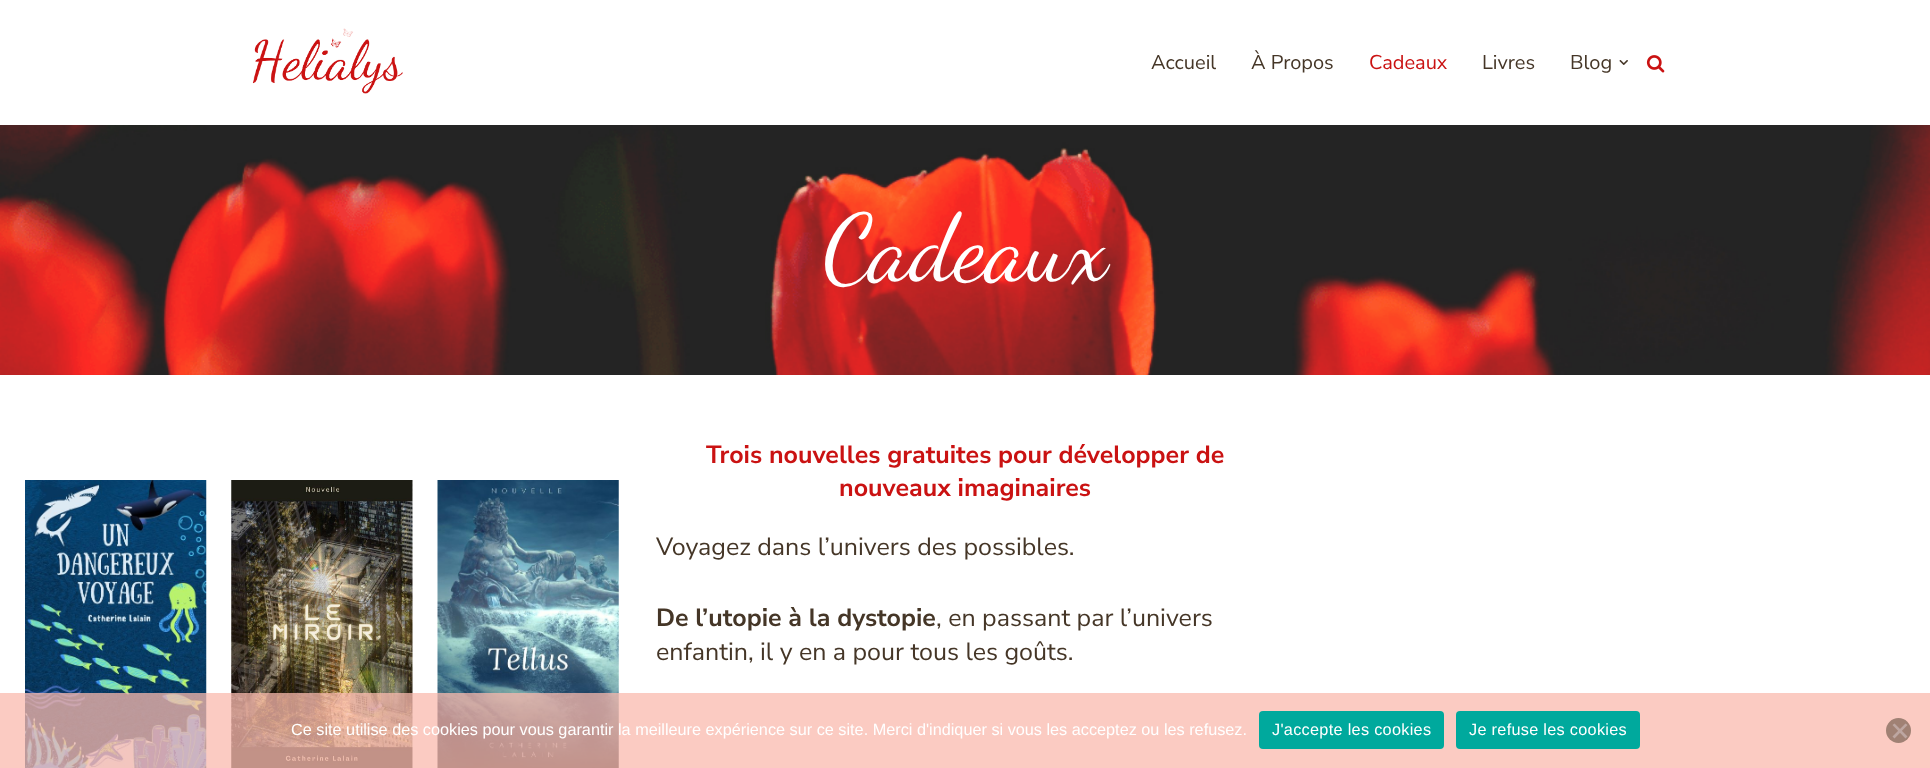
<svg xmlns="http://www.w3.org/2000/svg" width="1930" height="768">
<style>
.a{font:20px Nunito Sans;fill:#453627}
.b{font:20px Nunito Sans;fill:#ca1212}
.c{font:94px Dancing Script;fill:#fff}
.d{font:bold 25px Nunito Sans;fill:#ca1212}
.e{font:25px Nunito Sans;fill:#453627}
.f{font:bold 25px Nunito Sans;fill:#453627}
.g{font:16.25px Liberation Sans;fill:#fff}
.h{font:16.25px Liberation Sans;letter-spacing:0.3px;fill:#fff}
</style>
<rect width="100%" height="100%" fill="#fff"/>
<image href="1.png" x="252" y="28" width="151" height="66"/>
<image href="2.png" x="1619" y="60" width="9" height="5"/>
<image href="3.png" x="1646" y="55" width="19" height="18"/>
<image href="4.png" x="0" y="125" width="1930" height="250"/>
<image href="5.png" x="25" y="480" width="182" height="288"/>
<image href="6.png" x="231" y="480" width="182" height="288"/>
<image href="7.png" x="437" y="480" width="182" height="288"/>
<path fill="#f9baadbf" d="M0 693h1930v75H0z"/>
<rect fill="#00a99d" x="1259" y="711" width="185" height="38" rx="4"/>
<rect fill="#00a99d" x="1456" y="711" width="184" height="38" rx="4"/>
<circle fill="#a08174" cx="1898.5" cy="730.5" r="12.5"/>
<path fill="#bda6a1" d="M1905.5 723.5l2 1.5l-13 13.5l-2-2z"/>
<path fill="#bda6a1" d="M1892.5 725l2-1.5l13 13l-2 2z"/>
<text class="a" x="1151" y="69">Accueil</text>
<text class="a" x="1251" y="69">À Propos</text>
<text class="b" x="1369" y="69">Cadeaux</text>
<text class="a" x="1482" y="69">Livres</text>
<text class="a" x="1570" y="69">Blog</text>
<text class="c" x="823" y="279">Cadeaux</text>
<text class="d" x="706" y="463">Trois nouvelles gratuites pour développer de</text>
<text class="d" x="839" y="496">nouveaux imaginaires</text>
<text class="e" x="656" y="555">Voyagez dans l’univers des possibles.</text>
<text class="f" x="656" y="626">De l’utopie à la dystopie</text>
<text class="e" x="936" y="626">, en passant par l’univers</text>
<text class="e" x="656" y="660">enfantin, il y en a pour tous les goûts.</text>
<text class="g" x="291" y="735">Ce site utilise des cookies pour vous garantir la meilleure expérience sur ce site. Merci d'indiquer si vous les acceptez ou les refusez.</text>
<text class="h" x="1272" y="735">J'accepte les cookies</text>
<text class="h" x="1469" y="735">Je refuse les cookies</text>
</svg>
